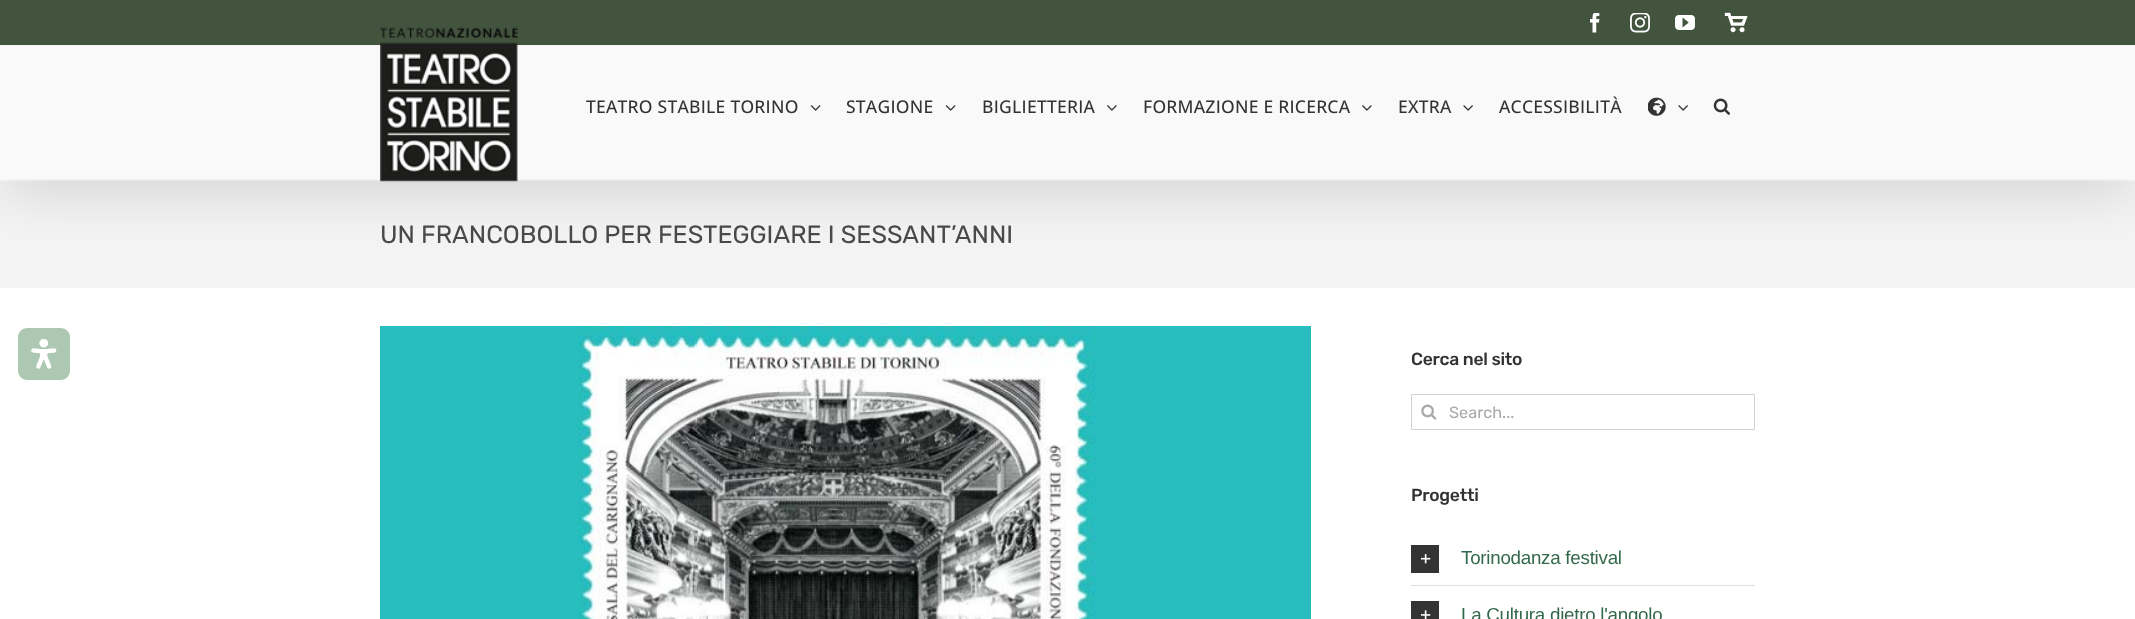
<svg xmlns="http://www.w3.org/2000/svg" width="2135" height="619">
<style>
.a{font:500 17.5px Open Sans;letter-spacing:0.25px;fill:#333}
.b{font:25px Rubik;fill:#494949}
.c{font:500 17.5px Rubik;letter-spacing:-0.25px;fill:#333}
.d{font:16.25px Rubik;fill:#aaa9a9}
.e{font:18.75px Liberation Sans;letter-spacing:-0.25px;fill:#34684c}
</style>
<rect width="100%" height="100%" fill="#fff"/>
<rect fill="#acc7b2" x="18" y="328" width="52" height="52" rx="9"/>
<image href="1.png" x="31" y="339" width="26" height="30"/>
<path fill="#f4f4f4" d="M0 181h2135v107H0z"/>
<path fill="#00000024" filter="blur(31px)" d="M3 15h2130v175H3z"/>
<path fill="#43543e" d="M0 0h2135v45H0z"/>
<path fill="#f2f2f2" d="M0 45h2135v1H0z"/>
<image href="2.png" x="1590" y="13" width="10" height="20"/>
<image href="3.png" x="1630" y="13" width="20" height="20"/>
<image href="4.png" x="1675" y="15" width="20" height="15"/>
<image href="5.png" x="1724" y="12" width="24" height="21"/>
<path fill="#f9f9f9" d="M0 46h2135v133H0z"/>
<path fill="#f2f2f2" d="M19 179h2098v1H19z"/>
<image href="6.png" x="380" y="27" width="138" height="155"/>
<image href="7.png" x="810" y="105" width="11" height="6"/>
<image href="7.png" x="945" y="105" width="11" height="6"/>
<image href="8.png" x="1107" y="105" width="10" height="6"/>
<image href="8.png" x="1362" y="105" width="10" height="6"/>
<image href="9.png" x="1463" y="105" width="10" height="6"/>
<image href="10.png" x="1648" y="97" width="18" height="19"/>
<image href="9.png" x="1678" y="105" width="10" height="6"/>
<image href="11.png" x="1713" y="98" width="17" height="17"/>
<image href="12.png" x="380" y="326" width="931" height="293"/>
<path fill="none" stroke="#d2d2d2" d="M1411.5 394.5h343v35H1411.5z"/>
<image href="13.png" x="1421" y="404" width="16" height="16"/>
<path fill="#e0dede" d="M1411 585h344v1H1411z"/>
<path fill="#333" d="M1411 545h28v28H1411z"/>
<image href="14.png" x="1420" y="554" width="11" height="10"/>
<path fill="#333" d="M1411 601h28v18H1411z"/>
<image href="15.png" x="1420" y="610" width="11" height="9"/>
<text class="a" x="586" y="113">TEATRO STABILE TORINO</text>
<text class="a" x="846" y="113">STAGIONE</text>
<text class="a" x="982" y="113">BIGLIETTERIA</text>
<text class="a" x="1143" y="113">FORMAZIONE E RICERCA</text>
<text class="a" x="1398" y="113">EXTRA</text>
<text class="a" x="1499" y="113">ACCESSIBILITÀ</text>
<text class="b" x="380" y="243">UN FRANCOBOLLO PER FESTEGGIARE I SESSANT’ANNI</text>
<text class="c" x="1411" y="365">Cerca nel sito</text>
<text class="d" x="1449" y="418">Search...</text>
<text class="c" x="1411" y="501">Progetti</text>
<text class="e" x="1461" y="564">Torinodanza festival</text>
<text class="e" x="1461" y="621">La Cultura dietro l'angolo</text>
</svg>
